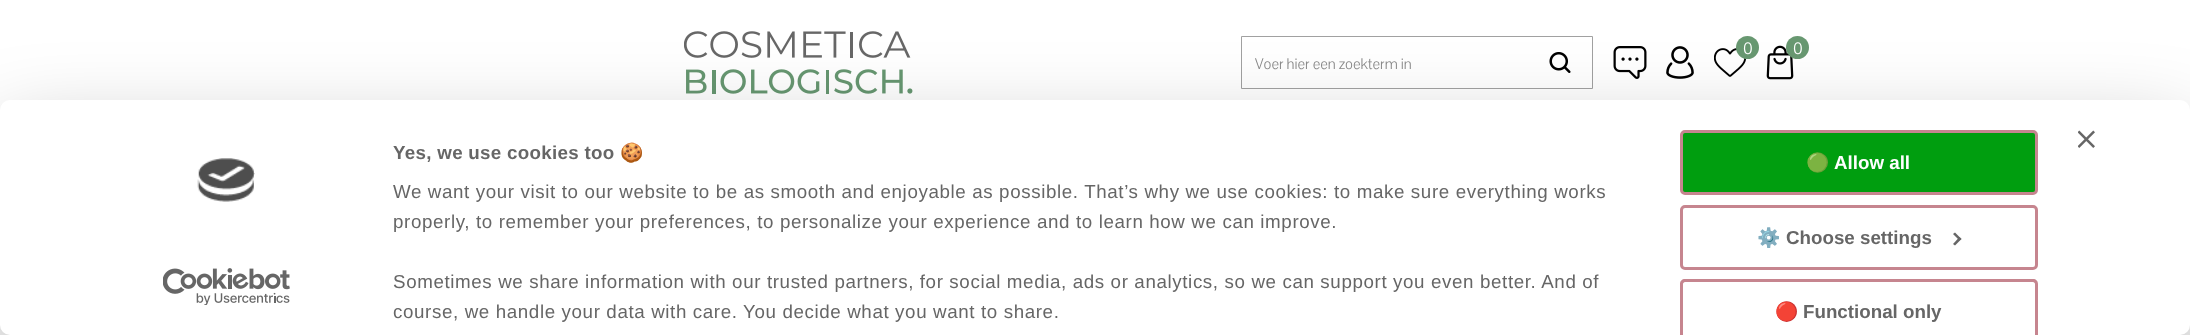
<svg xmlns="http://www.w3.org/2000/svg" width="2190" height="335">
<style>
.a{font:300 16px Pontano Sans;fill:#fff}
.b{font:300 15px Pontano Sans;fill:#878787}
.c{font:bold 18.75px Liberation Sans;letter-spacing:0.3px;fill:#666}
.d{font:bold 18.75px Noto Color Emoji;letter-spacing:0.3px;fill:#666}
.e{font:18.75px Liberation Sans;letter-spacing:0.62px;fill:#666}
.f{font:bold 18.75px Noto Color Emoji;fill:#fff}
.g{font:bold 18.75px Liberation Sans;fill:#fff}
.h{font:bold 18.75px Noto Color Emoji;fill:#666}
.i{font:bold 18.75px Liberation Sans;fill:#666}
</style>
<rect width="100%" height="100%" fill="#fff"/>
<image href="1.png" x="684" y="31" width="229" height="63"/>
<image href="2.png" x="1613" y="46" width="34" height="33"/>
<image href="3.png" x="1666" y="46" width="28" height="33"/>
<image href="4.png" x="1714" y="48" width="32" height="29"/>
<circle fill="#689871" cx="1747.5" cy="47.5" r="11.5"/>
<image href="5.png" x="1766" y="45" width="28" height="35"/>
<circle fill="#689871" cx="1797.5" cy="47.5" r="11.5"/>
<path fill="none" stroke="#a1a1a1" d="M1241.5 36.5h351v52H1241.5z"/>
<image href="6.png" x="1549" y="52" width="22" height="21"/>
<rect fill="#0000004d" filter="blur(44px)" y="138" width="2190" height="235" rx="10"/>
<rect fill="#fff" y="100" width="2190" height="235" rx="10"/>
<image href="7.png" x="2078" y="130" width="17" height="18"/>
<image href="8.png" x="197" y="158" width="58" height="44"/>
<image href="9.png" x="163" y="268" width="127" height="37"/>
<rect fill="#009e0f" stroke="#c6858f" stroke-width="3" x="1681.5" y="131.5" width="355" height="62" rx="3.5"/>
<rect fill="none" stroke="#c6858f" stroke-width="3" x="1681.5" y="206.5" width="355" height="62" rx="3.5"/>
<path fill="#666" d="M1955 232.5l6.5 6.5l-2 1.5l-6.5-6.5z"/>
<path fill="#666" d="M1959.5 237l2 2l-6.5 6.5l-2-1.5z"/>
<path fill="#c6858f" d="M1685 279c-3 0-5 2-5 5v51h3v-51c0-1 1-2 2-2h348c1 0 2 1 2 2v51h3v-51c0-3-2-5-5-5z"/>
<text class="a" x="1743" y="54">0</text>
<text class="a" x="1793" y="54">0</text>
<text class="b" x="1255" y="69">Voer hier een zoekterm in</text>
<text class="c" x="393" y="159">Yes, we use cookies too</text>
<text class="d" x="620" y="159">🍪</text>
<text class="e" x="393" y="198">We want your visit to our website to be as smooth and enjoyable as possible. That’s why we use cookies: to make sure everything works</text>
<text class="e" x="393" y="228">properly, to remember your preferences, to personalize your experience and to learn how we can improve.</text>
<text class="e" x="393" y="288">Sometimes we share information with our trusted partners, for social media, ads or analytics, so we can support you even better. And of</text>
<text class="e" x="393" y="318">course, we handle your data with care. You decide what you want to share.</text>
<text class="f" x="1806" y="169">🟢</text>
<text class="g" x="1834" y="169">Allow all</text>
<text class="h" x="1757" y="244">⚙️</text>
<text class="i" x="1786" y="244">Choose settings</text>
<text class="h" x="1775" y="318">🔴</text>
<text class="i" x="1803" y="318">Functional only</text>
</svg>
